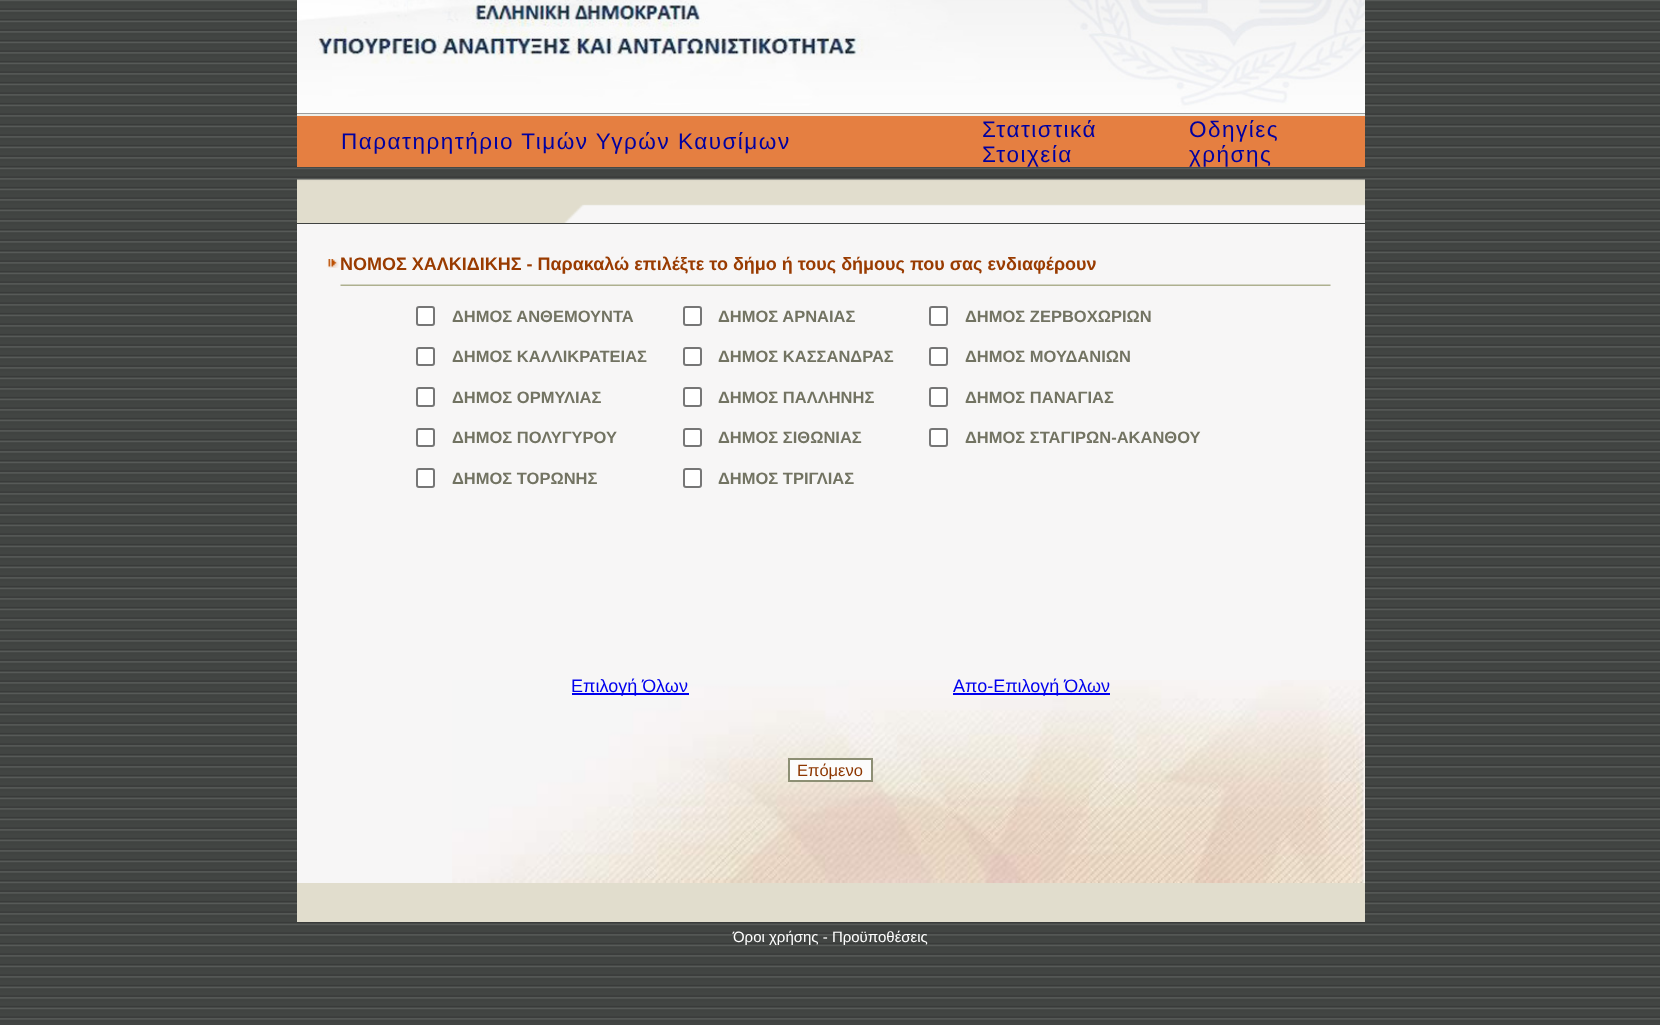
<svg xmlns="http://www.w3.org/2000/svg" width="1660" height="1025">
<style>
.a{font:22.5px Liberation Sans;letter-spacing:1.5px;fill:#0000a0}
.b{font:bold 18px Liberation Sans;fill:#993b00}
.c{font:bold 16.5px Liberation Sans;fill:#727362}
.d{font:18px Liberation Sans;fill:#00e}
.e{font:16.5px Liberation Sans;fill:#8d3600}
.f{font:15px Liberation Sans;fill:#fff}
</style>
<rect width="100%" height="100%" fill="#fff"/>
<image href="1.png" x="0" y="0" width="1660" height="1025"/>
<image href="2.png" x="297" y="0" width="1068" height="114"/>
<path fill="#efefe9" d="M297 114h1068v2H297z"/>
<path fill="#e57f41" d="M297 116h1068v51H297z"/>
<image href="3.png" x="297" y="179" width="1068" height="44"/>
<path fill="#f7f6f6" d="M297 224h1068v659H297z"/>
<image href="4.png" x="452" y="680" width="913" height="203"/>
<image href="5.png" x="327" y="259" width="12" height="9"/>
<image href="6.png" x="340" y="284" width="991" height="2"/>
<rect fill="#fff" stroke="#767676" stroke-width="2" x="417" y="307" width="17" height="18" rx="2"/>
<rect fill="#fff" stroke="#767676" stroke-width="2" x="684" y="307" width="17" height="18" rx="2"/>
<rect fill="#fff" stroke="#767676" stroke-width="2" x="930" y="307" width="17" height="18" rx="2"/>
<rect fill="#fff" stroke="#767676" stroke-width="2" x="417" y="348" width="17" height="17" rx="2"/>
<rect fill="#fff" stroke="#767676" stroke-width="2" x="684" y="348" width="17" height="17" rx="2"/>
<rect fill="#fff" stroke="#767676" stroke-width="2" x="930" y="348" width="17" height="17" rx="2"/>
<rect fill="#fff" stroke="#767676" stroke-width="2" x="417" y="388" width="17" height="18" rx="2"/>
<rect fill="#fff" stroke="#767676" stroke-width="2" x="684" y="388" width="17" height="18" rx="2"/>
<rect fill="#fff" stroke="#767676" stroke-width="2" x="930" y="388" width="17" height="18" rx="2"/>
<rect fill="#fff" stroke="#767676" stroke-width="2" x="417" y="429" width="17" height="17" rx="2"/>
<rect fill="#fff" stroke="#767676" stroke-width="2" x="684" y="429" width="17" height="17" rx="2"/>
<rect fill="#fff" stroke="#767676" stroke-width="2" x="930" y="429" width="17" height="17" rx="2"/>
<rect fill="#fff" stroke="#767676" stroke-width="2" x="417" y="469" width="17" height="18" rx="2"/>
<rect fill="#fff" stroke="#767676" stroke-width="2" x="684" y="469" width="17" height="18" rx="2"/>
<path fill="#00e" d="M572 693h117v2H572z"/>
<path fill="#00e" d="M953 693h157v2H953z"/>
<path fill="#fcfcfc" stroke="#8d8f74" stroke-width="2" d="M789 759h83v22H789z"/>
<path fill="#e1ddcd" d="M297 883h1068v39H297z"/>
<text class="a" x="341" y="149">Παρατηρητήριο Τιμών Υγρών Καυσίμων</text>
<text class="a" x="982" y="137">Στατιστικά</text>
<text class="a" x="982" y="162">Στοιχεία</text>
<text class="a" x="1189" y="137">Οδηγίες</text>
<text class="a" x="1189" y="162">χρήσης</text>
<text class="b" x="340" y="270">ΝΟΜΟΣ ΧΑΛΚΙΔΙΚΗΣ - Παρακαλώ επιλέξτε το δήμο ή τους δήμους που σας ενδιαφέρουν</text>
<text class="c" x="452" y="322">ΔΗΜΟΣ ΑΝΘΕΜΟΥΝΤΑ</text>
<text class="c" x="718" y="322">ΔΗΜΟΣ ΑΡΝΑΙΑΣ</text>
<text class="c" x="965" y="322">ΔΗΜΟΣ ΖΕΡΒΟΧΩΡΙΩΝ</text>
<text class="c" x="452" y="362">ΔΗΜΟΣ ΚΑΛΛΙΚΡΑΤΕΙΑΣ</text>
<text class="c" x="718" y="362">ΔΗΜΟΣ ΚΑΣΣΑΝΔΡΑΣ</text>
<text class="c" x="965" y="362">ΔΗΜΟΣ ΜΟΥΔΑΝΙΩΝ</text>
<text class="c" x="452" y="403">ΔΗΜΟΣ ΟΡΜΥΛΙΑΣ</text>
<text class="c" x="718" y="403">ΔΗΜΟΣ ΠΑΛΛΗΝΗΣ</text>
<text class="c" x="965" y="403">ΔΗΜΟΣ ΠΑΝΑΓΙΑΣ</text>
<text class="c" x="452" y="443">ΔΗΜΟΣ ΠΟΛΥΓΥΡΟΥ</text>
<text class="c" x="718" y="443">ΔΗΜΟΣ ΣΙΘΩΝΙΑΣ</text>
<text class="c" x="965" y="443">ΔΗΜΟΣ ΣΤΑΓΙΡΩΝ-ΑΚΑΝΘΟΥ</text>
<text class="c" x="452" y="484">ΔΗΜΟΣ ΤΟΡΩΝΗΣ</text>
<text class="c" x="718" y="484">ΔΗΜΟΣ ΤΡΙΓΛΙΑΣ</text>
<text class="d" x="571" y="692">Επιλογή Όλων</text>
<text class="d" x="953" y="692">Απο-Επιλογή Όλων</text>
<text class="e" x="797" y="776">Επόμενο</text>
<text class="f" x="733" y="942">Όροι χρήσης - Προϋποθέσεις</text>
</svg>
